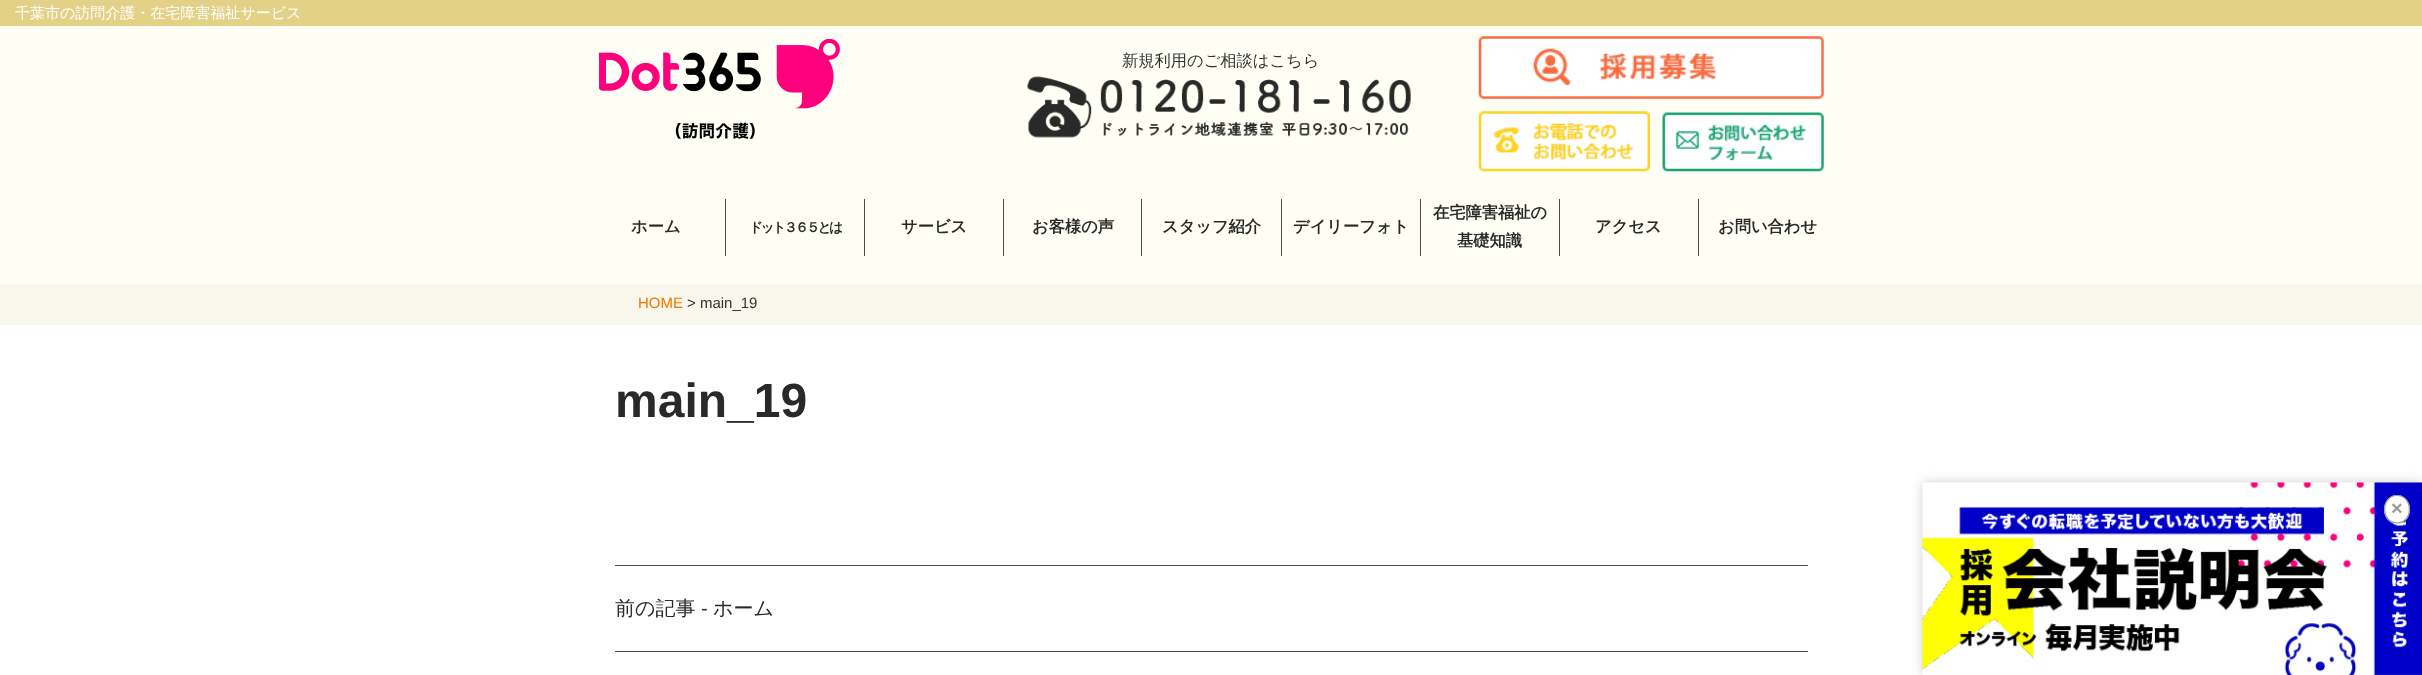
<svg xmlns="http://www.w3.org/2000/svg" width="2422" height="675">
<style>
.a{font:500 15px WenQuanYi Zen Hei;fill:#fff}
.b{font:500 16.25px WenQuanYi Zen Hei;fill:#333}
.c{font:bold 16.25px WenQuanYi Zen Hei;fill:#292929}
.d{font:bold 13.75px WenQuanYi Zen Hei;letter-spacing:-2.5px;fill:#292929}
.e{font:15px Liberation Sans;fill:#f07700}
.f{font:15px Liberation Sans;fill:#333}
.g{font:bold 48px Liberation Sans;fill:#292929}
.h{font:500 20px WenQuanYi Zen Hei;fill:#292929}
.i{font:20px Liberation Sans;fill:#292929}
.j{font:bold 20px Liberation Sans;fill:#999}
</style>
<rect width="100%" height="100%" fill="#fff"/>
<path fill="#fffff6" d="M0 26h2422v258H0z"/>
<path fill="#e3d187" d="M0 0h2422v26H0z"/>
<image href="1.png" x="599" y="39" width="241" height="100"/>
<image href="2.png" x="1027" y="76" width="384" height="62"/>
<image href="3.png" x="1478" y="36" width="346" height="63"/>
<image href="4.png" x="1478" y="111" width="172" height="61"/>
<image href="5.png" x="1662" y="112" width="162" height="60"/>
<path fill="#59493f" d="M725 199h1v57H725z"/>
<path fill="#59493f" d="M864 199h1v57H864z"/>
<path fill="#59493f" d="M1003 199h1v57H1003z"/>
<path fill="#59493f" d="M1141 199h1v57H1141z"/>
<path fill="#59493f" d="M1281 199h1v57H1281z"/>
<path fill="#59493f" d="M1420 199h1v57H1420z"/>
<path fill="#59493f" d="M1559 199h1v57H1559z"/>
<path fill="#59493f" d="M1698 199h1v57H1698z"/>
<path fill="#f9f6ec" d="M0 284h2422v41H0z"/>
<path fill="#59493f" d="M615 565h1193v1H615z"/>
<path fill="#59493f" d="M615 651h1193v1H615z"/>
<path fill="#ccc" filter="blur(6px)" d="M1923 483h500v192H1923z"/>
<image href="6.png" x="1922" y="482" width="500" height="193"/>
<ellipse fill="#fff" cx="2397" cy="509.5" rx="13" ry="14.5"/>
<path fill="none" stroke="#999" stroke-width="1.2" d="M2397 495.5c16.5 0 16.5 27.5 0 27.5c-16.5 0-16.5-27.5 0-27.5z"/>
<text class="a" x="15" y="18">千葉市の訪問介護・在宅障害福祉サービス</text>
<text class="b" x="1122" y="66">新規利用のご相談はこちら</text>
<text class="c" x="631" y="232">ホーム</text>
<text class="d" x="749" y="232">ドット３６５とは</text>
<text class="c" x="901" y="232">サービス</text>
<text class="c" x="1032" y="232">お客様の声</text>
<text class="c" x="1162" y="232">スタッフ紹介</text>
<text class="c" x="1293" y="232">デイリーフォト</text>
<text class="c" x="1433" y="218">在宅障害福祉の</text>
<text class="c" x="1457" y="246">基礎知識</text>
<text class="c" x="1595" y="232">アクセス</text>
<text class="c" x="1718" y="232">お問い合わせ</text>
<text class="e" x="638" y="308">HOME</text>
<text class="f" x="687" y="308">&gt; main_19</text>
<text class="g" x="615" y="417">main_19</text>
<text class="h" x="615" y="615">前の記事</text>
<text class="i" x="701" y="615">-</text>
<text class="h" x="713" y="615">ホーム</text>
<text class="j" x="2391" y="515">×</text>
</svg>
